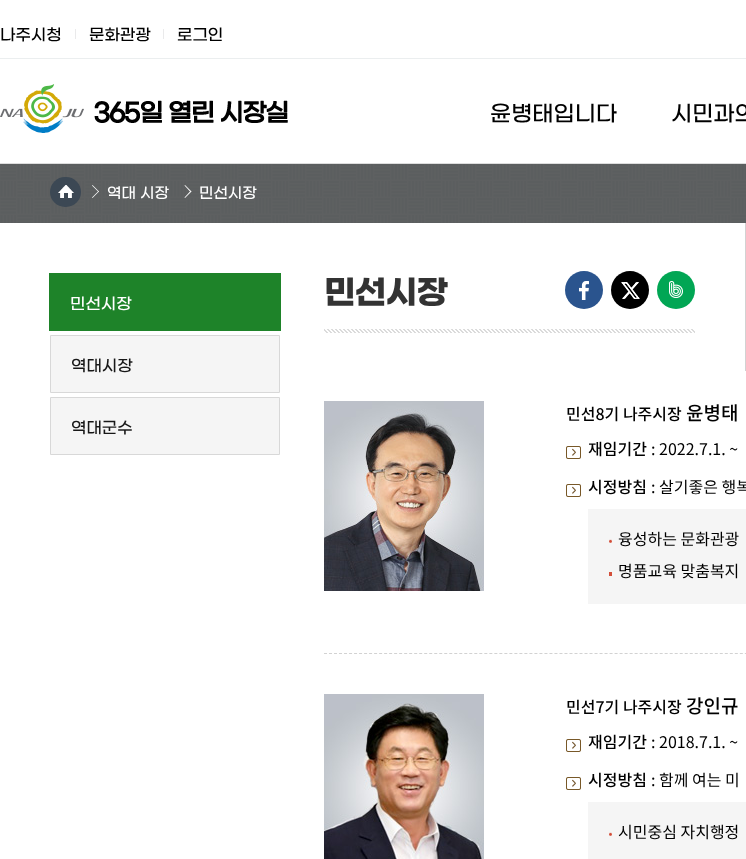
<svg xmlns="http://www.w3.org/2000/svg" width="746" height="859">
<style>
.a{font:500 16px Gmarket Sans;fill:#000}
.b{font:500 22px Gmarket Sans;fill:#000}
.c{font:500 15px Gmarket Sans;fill:#fff}
.d{font:500 16px Gmarket Sans;fill:#fff}
.e{font:500 16px Gmarket Sans;fill:#171717}
.f{font:bold 33px Gmarket Sans;letter-spacing:-1px;fill:#333}
.g{font:500 16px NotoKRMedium;fill:#000}
.h{font:500 19px NotoKRMedium;fill:#000}
.i{font:16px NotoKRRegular;fill:#000}
</style>
<rect width="100%" height="100%" fill="#fff"/>
<path fill="#ebeeef" d="M0 58h746v1H0z"/>
<path fill="#eaeaeb" d="M75 29h1v10H75z"/>
<path fill="#eaeaeb" d="M163 29h1v10H163z"/>
<image href="1.png" x="0" y="84" width="288" height="49"/>
<path fill="#ddd" d="M0 163h746v1H0z"/>
<image href="2.png" x="0" y="164" width="746" height="59"/>
<path fill="#00000099" d="M0 164h746v59H0z"/>
<rect fill="#3c4854" x="50" y="177" width="31" height="30" rx="15"/>
<image href="3.png" x="58" y="185" width="16" height="13"/>
<path fill="#fff" d="M92.5 185l6.5 6.5l-.5 .5l-6.5-6.5z"/>
<path fill="#fff" d="M92 197.5l6.5-6.5l.5 .5l-6.5 6.5z"/>
<path fill="#fff" d="M185 185l6.5 6.5l-1 .5l-6-6.5z"/>
<path fill="#fff" d="M184.5 197.5l6-6.5l1 .5l-6.5 6.5z"/>
<path fill="#d2d2d2" d="M745 223h1v148H745z"/>
<path fill="#1e8329" d="M49 273h232v58H49z"/>
<path fill="#f5f5f5" stroke="#d8d8d8" d="M50.5 335.5h229v57H50.5z"/>
<path fill="#f5f5f5" stroke="#d8d8d8" d="M50.5 397.5h229v57H50.5z"/>
<image href="4.png" x="324" y="329" width="371" height="4"/>
<circle fill="#2a548e" cx="584" cy="290" r="19"/>
<image href="5.png" x="579" y="281" width="10" height="19"/>
<circle fill="#000" cx="630" cy="290" r="19"/>
<image href="6.png" x="621" y="282" width="19" height="17"/>
<circle fill="#01a654" cx="676" cy="290" r="19"/>
<image href="7.png" x="669" y="281" width="14" height="17"/>
<image href="8.png" x="324" y="401" width="160" height="190"/>
<image href="9.png" x="566" y="446" width="15" height="13"/>
<image href="9.png" x="566" y="484" width="15" height="13"/>
<path fill="#f5f5f5" d="M588 509h158v95H588z"/>
<image href="10.png" x="609" y="539" width="3" height="4"/>
<path fill="#d34f3a" d="M609 572h3v4H609z"/>
<path fill="none" stroke="#d2d2d2" stroke-dasharray="3 2.01" d="M324 653.5h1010"/>
<image href="11.png" x="324" y="694" width="160" height="165"/>
<image href="9.png" x="566" y="739" width="15" height="13"/>
<image href="9.png" x="566" y="777" width="15" height="13"/>
<path fill="#f5f5f5" d="M588 802h158v57H588z"/>
<image href="10.png" x="609" y="832" width="3" height="4"/>
<text class="a" x="0" y="38">나주시청</text>
<text class="a" x="89" y="38">문화관광</text>
<text class="a" x="177" y="38">로그인</text>
<text class="b" x="490" y="118">윤병태입니다</text>
<text class="b" x="671" y="118">시민과의</text>
<text class="c" x="107" y="196">역대 시장</text>
<text class="c" x="199" y="196">민선시장</text>
<text class="d" x="70" y="307">민선시장</text>
<text class="e" x="71" y="369">역대시장</text>
<text class="e" x="71" y="431">역대군수</text>
<text class="f" x="324" y="299">민선시장</text>
<text class="g" x="566" y="420">민선8기 나주시장</text>
<text class="h" x="686" y="420">윤병태</text>
<text class="g" x="588" y="455">재임기간</text>
<text class="i" x="651" y="455">: 2022.7.1. ~</text>
<text class="g" x="588" y="493">시정방침</text>
<text class="i" x="651" y="493">: 살기좋은 행복</text>
<text class="i" x="618" y="545">융성하는 문화관광</text>
<text class="i" x="618" y="577">명품교육 맞춤복지</text>
<text class="g" x="566" y="713">민선7기 나주시장</text>
<text class="h" x="686" y="713">강인규</text>
<text class="g" x="588" y="748">재임기간</text>
<text class="i" x="651" y="748">: 2018.7.1. ~</text>
<text class="g" x="588" y="786">시정방침</text>
<text class="i" x="651" y="786">: 함께 여는 미</text>
<text class="i" x="618" y="838">시민중심 자치행정</text>
</svg>
